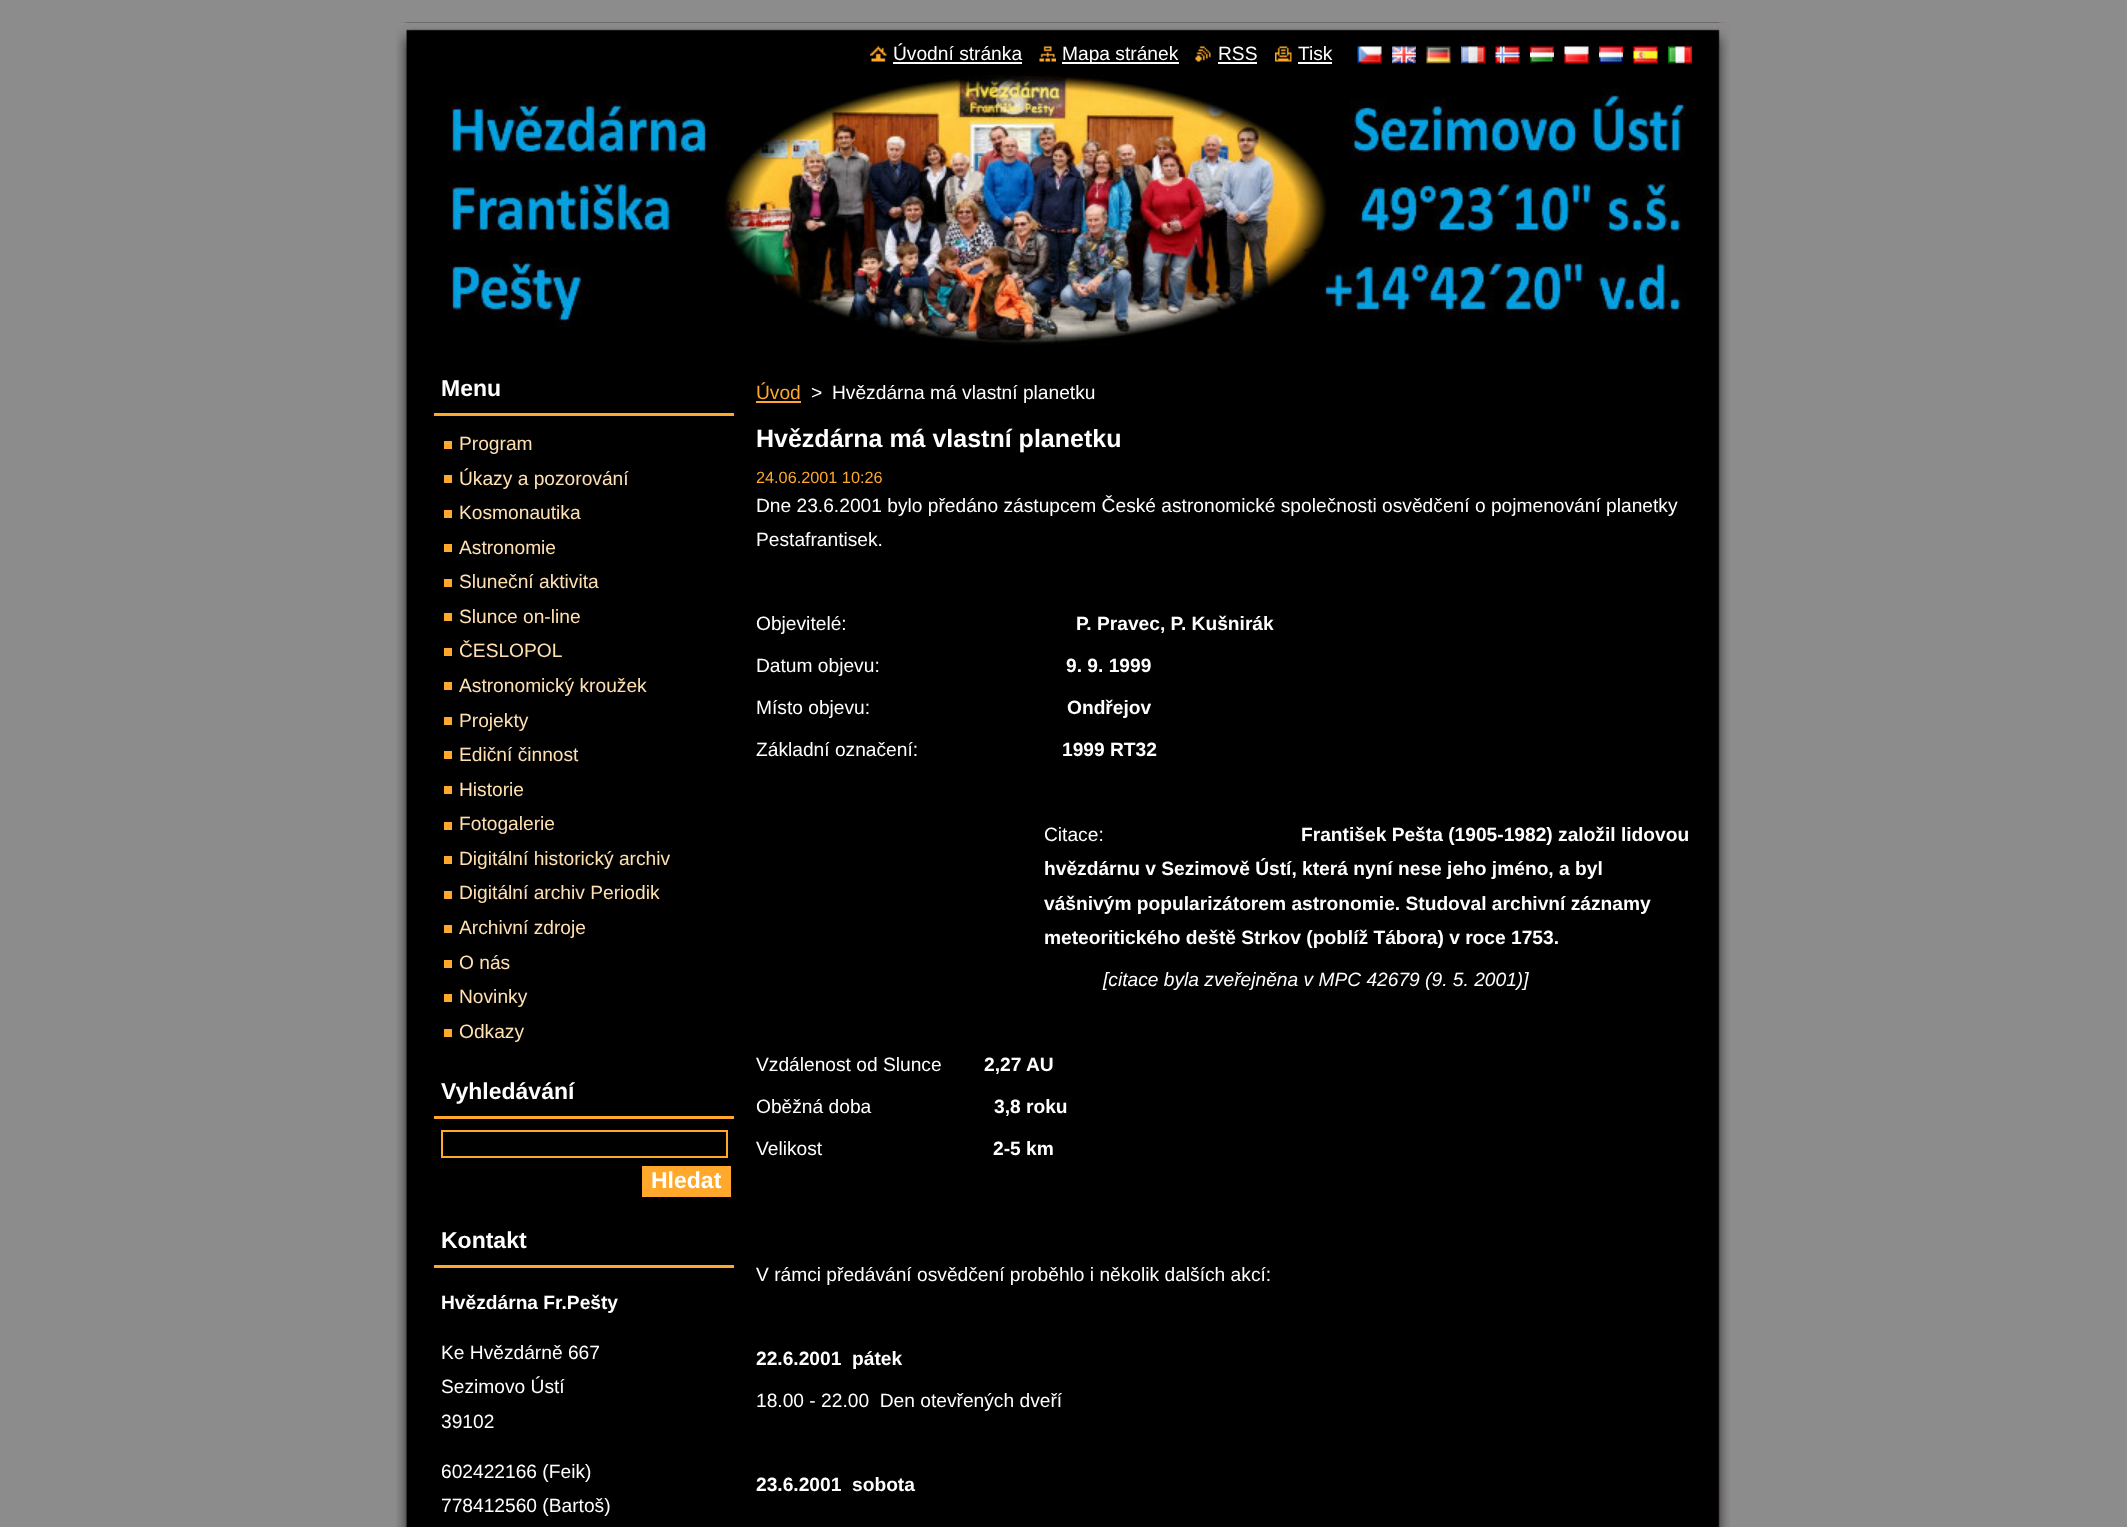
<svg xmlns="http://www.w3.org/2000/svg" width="2127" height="1527">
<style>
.a{font:19.2px Liberation Sans;fill:#fff}
.b{font:bold 23px Liberation Sans;fill:#fff}
.c{font:19.2px Liberation Sans;fill:#ffe1b1}
.d{font:bold 19.2px Liberation Sans;fill:#fff}
.e{font:19.2px Liberation Sans;fill:#ffa82c}
.f{font:bold 25px Liberation Sans;fill:#fff}
.g{font:16.25px Liberation Sans;fill:#ffa82c}
.h{font:italic 19.2px Liberation Sans;fill:#fff}
</style>
<rect width="100%" height="100%" fill="#8c8c8c"/>
<image href="1.png" x="396" y="22" width="1334" height="1466"/>
<image href="2.png" x="396" y="22" width="1334" height="27"/>
<image href="3.png" x="396" y="1488" width="1334" height="39"/>
<image href="4.png" x="870" y="46" width="17" height="16"/>
<path fill="#fff" d="M893 62h129v2H893z"/>
<image href="5.png" x="1039" y="46" width="17" height="16"/>
<path fill="#fff" d="M1062 62h117v2H1062z"/>
<image href="6.png" x="1195" y="46" width="16" height="16"/>
<path fill="#fff" d="M1218 62h39v2H1218z"/>
<image href="7.png" x="1275" y="46" width="17" height="16"/>
<path fill="#fff" d="M1298 62h34v2H1298z"/>
<image href="8.png" x="1357" y="46" width="25" height="18"/>
<image href="9.png" x="1392" y="46" width="24" height="18"/>
<image href="10.png" x="1426" y="46" width="25" height="18"/>
<image href="11.png" x="1461" y="46" width="24" height="18"/>
<image href="12.png" x="1495" y="46" width="25" height="18"/>
<image href="13.png" x="1530" y="46" width="24" height="18"/>
<image href="14.png" x="1564" y="46" width="25" height="18"/>
<image href="15.png" x="1599" y="46" width="24" height="18"/>
<image href="16.png" x="1633" y="46" width="25" height="18"/>
<image href="17.png" x="1668" y="46" width="24" height="18"/>
<image href="18.png" x="450" y="75" width="1236" height="270"/>
<path fill="#ffa82c" d="M434 413h300v3H434z"/>
<path fill="#ffa82d" d="M444 441h8v8H444z"/>
<path fill="#ffa82d" d="M444 475h8v8H444z"/>
<path fill="#ffa82d" d="M444 510h8v8H444z"/>
<path fill="#ffa82d" d="M444 544h8v8H444z"/>
<path fill="#ffa82d" d="M444 579h8v8H444z"/>
<path fill="#ffa82d" d="M444 613h8v8H444z"/>
<path fill="#ffa82d" d="M444 648h8v8H444z"/>
<path fill="#ffa82d" d="M444 682h8v8H444z"/>
<path fill="#ffa82d" d="M444 717h8v8H444z"/>
<path fill="#ffa82d" d="M444 751h8v8H444z"/>
<path fill="#ffa82d" d="M444 786h8v8H444z"/>
<path fill="#ffa82d" d="M444 822h8v8H444z"/>
<path fill="#ffa82d" d="M444 856h8v8H444z"/>
<path fill="#ffa82d" d="M444 891h8v8H444z"/>
<path fill="#ffa82d" d="M444 925h8v8H444z"/>
<path fill="#ffa82d" d="M444 960h8v8H444z"/>
<path fill="#ffa82d" d="M444 994h8v8H444z"/>
<path fill="#ffa82d" d="M444 1029h8v8H444z"/>
<path fill="#ffa82c" d="M434 1116h300v3H434z"/>
<path fill="none" stroke="#ffa82c" stroke-width="2" d="M442 1131h285v26H442z"/>
<path fill="#ffa82c" d="M642 1166h89v31H642z"/>
<path fill="#ffa82c" d="M434 1265h300v3H434z"/>
<path fill="#ffa82c" d="M756 401h45v2H756z"/>
<text class="a" x="893" y="60">Úvodní stránka</text>
<text class="a" x="1062" y="60">Mapa stránek</text>
<text class="a" x="1218" y="60">RSS</text>
<text class="a" x="1298" y="60">Tisk</text>
<text class="b" x="441" y="396">Menu</text>
<text class="c" x="459" y="450">Program</text>
<text class="c" x="459" y="485">Úkazy a pozorování</text>
<text class="c" x="459" y="519">Kosmonautika</text>
<text class="c" x="459" y="554">Astronomie</text>
<text class="c" x="459" y="588">Sluneční aktivita</text>
<text class="c" x="459" y="623">Slunce on-line</text>
<text class="c" x="459" y="657">ČESLOPOL</text>
<text class="c" x="459" y="692">Astronomický kroužek</text>
<text class="c" x="459" y="727">Projekty</text>
<text class="c" x="459" y="761">Ediční činnost</text>
<text class="c" x="459" y="796">Historie</text>
<text class="c" x="459" y="830">Fotogalerie</text>
<text class="c" x="459" y="865">Digitální historický archiv</text>
<text class="c" x="459" y="899">Digitální archiv Periodik</text>
<text class="c" x="459" y="934">Archivní zdroje</text>
<text class="c" x="459" y="969">O nás</text>
<text class="c" x="459" y="1003">Novinky</text>
<text class="c" x="459" y="1038">Odkazy</text>
<text class="b" x="441" y="1099">Vyhledávání</text>
<text class="b" x="651" y="1188">Hledat</text>
<text class="b" x="441" y="1248">Kontakt</text>
<text class="d" x="441" y="1309">Hvězdárna Fr.Pešty</text>
<text class="a" x="441" y="1359">Ke Hvězdárně 667</text>
<text class="a" x="441" y="1393">Sezimovo Ústí</text>
<text class="a" x="441" y="1428">39102</text>
<text class="a" x="441" y="1478">602422166 (Feik)</text>
<text class="a" x="441" y="1512">778412560 (Bartoš)</text>
<text class="e" x="756" y="399">Úvod</text>
<text class="a" x="811" y="399">&gt;</text>
<text class="a" x="832" y="399">Hvězdárna má vlastní planetku</text>
<text class="f" x="756" y="447">Hvězdárna má vlastní planetku</text>
<text class="g" x="756" y="483">24.06.2001 10:26</text>
<text class="a" x="756" y="512">Dne 23.6.2001 bylo předáno zástupcem České astronomické společnosti osvědčení o pojmenování planetky</text>
<text class="a" x="756" y="546">Pestafrantisek.</text>
<text class="a" x="756" y="630">Objevitelé:</text>
<text class="d" x="1076" y="630">P. Pravec, P. Kušnirák</text>
<text class="a" x="756" y="672">Datum objevu:</text>
<text class="d" x="1066" y="672">9. 9. 1999</text>
<text class="a" x="756" y="714">Místo objevu:</text>
<text class="d" x="1067" y="714">Ondřejov</text>
<text class="a" x="756" y="756">Základní označení:</text>
<text class="d" x="1062" y="756">1999 RT32</text>
<text class="a" x="1044" y="841">Citace:</text>
<text class="d" x="1301" y="841">František Pešta (1905-1982) založil lidovou</text>
<text class="d" x="1044" y="875">hvězdárnu v Sezimově Ústí, která nyní nese jeho jméno, a byl</text>
<text class="d" x="1044" y="910">vášnivým popularizátorem astronomie. Studoval archivní záznamy</text>
<text class="d" x="1044" y="944">meteoritického deště Strkov (poblíž Tábora) v roce 1753.</text>
<text class="h" x="1103" y="986">[citace byla zveřejněna v MPC 42679 (9. 5. 2001)]</text>
<text class="a" x="756" y="1071">Vzdálenost od Slunce</text>
<text class="d" x="984" y="1071">2,27 AU</text>
<text class="a" x="756" y="1113">Oběžná doba</text>
<text class="d" x="994" y="1113">3,8 roku</text>
<text class="a" x="756" y="1155">Velikost</text>
<text class="d" x="993" y="1155">2-5 km</text>
<text class="a" x="756" y="1281">V rámci předávání osvědčení proběhlo i několik dalších akcí:</text>
<text class="d" xml:space="preserve" x="756" y="1365">22.6.2001  pátek</text>
<text class="a" xml:space="preserve" x="756" y="1407">18.00 - 22.00  Den otevřených dveří</text>
<text class="d" xml:space="preserve" x="756" y="1491">23.6.2001  sobota</text>
</svg>
